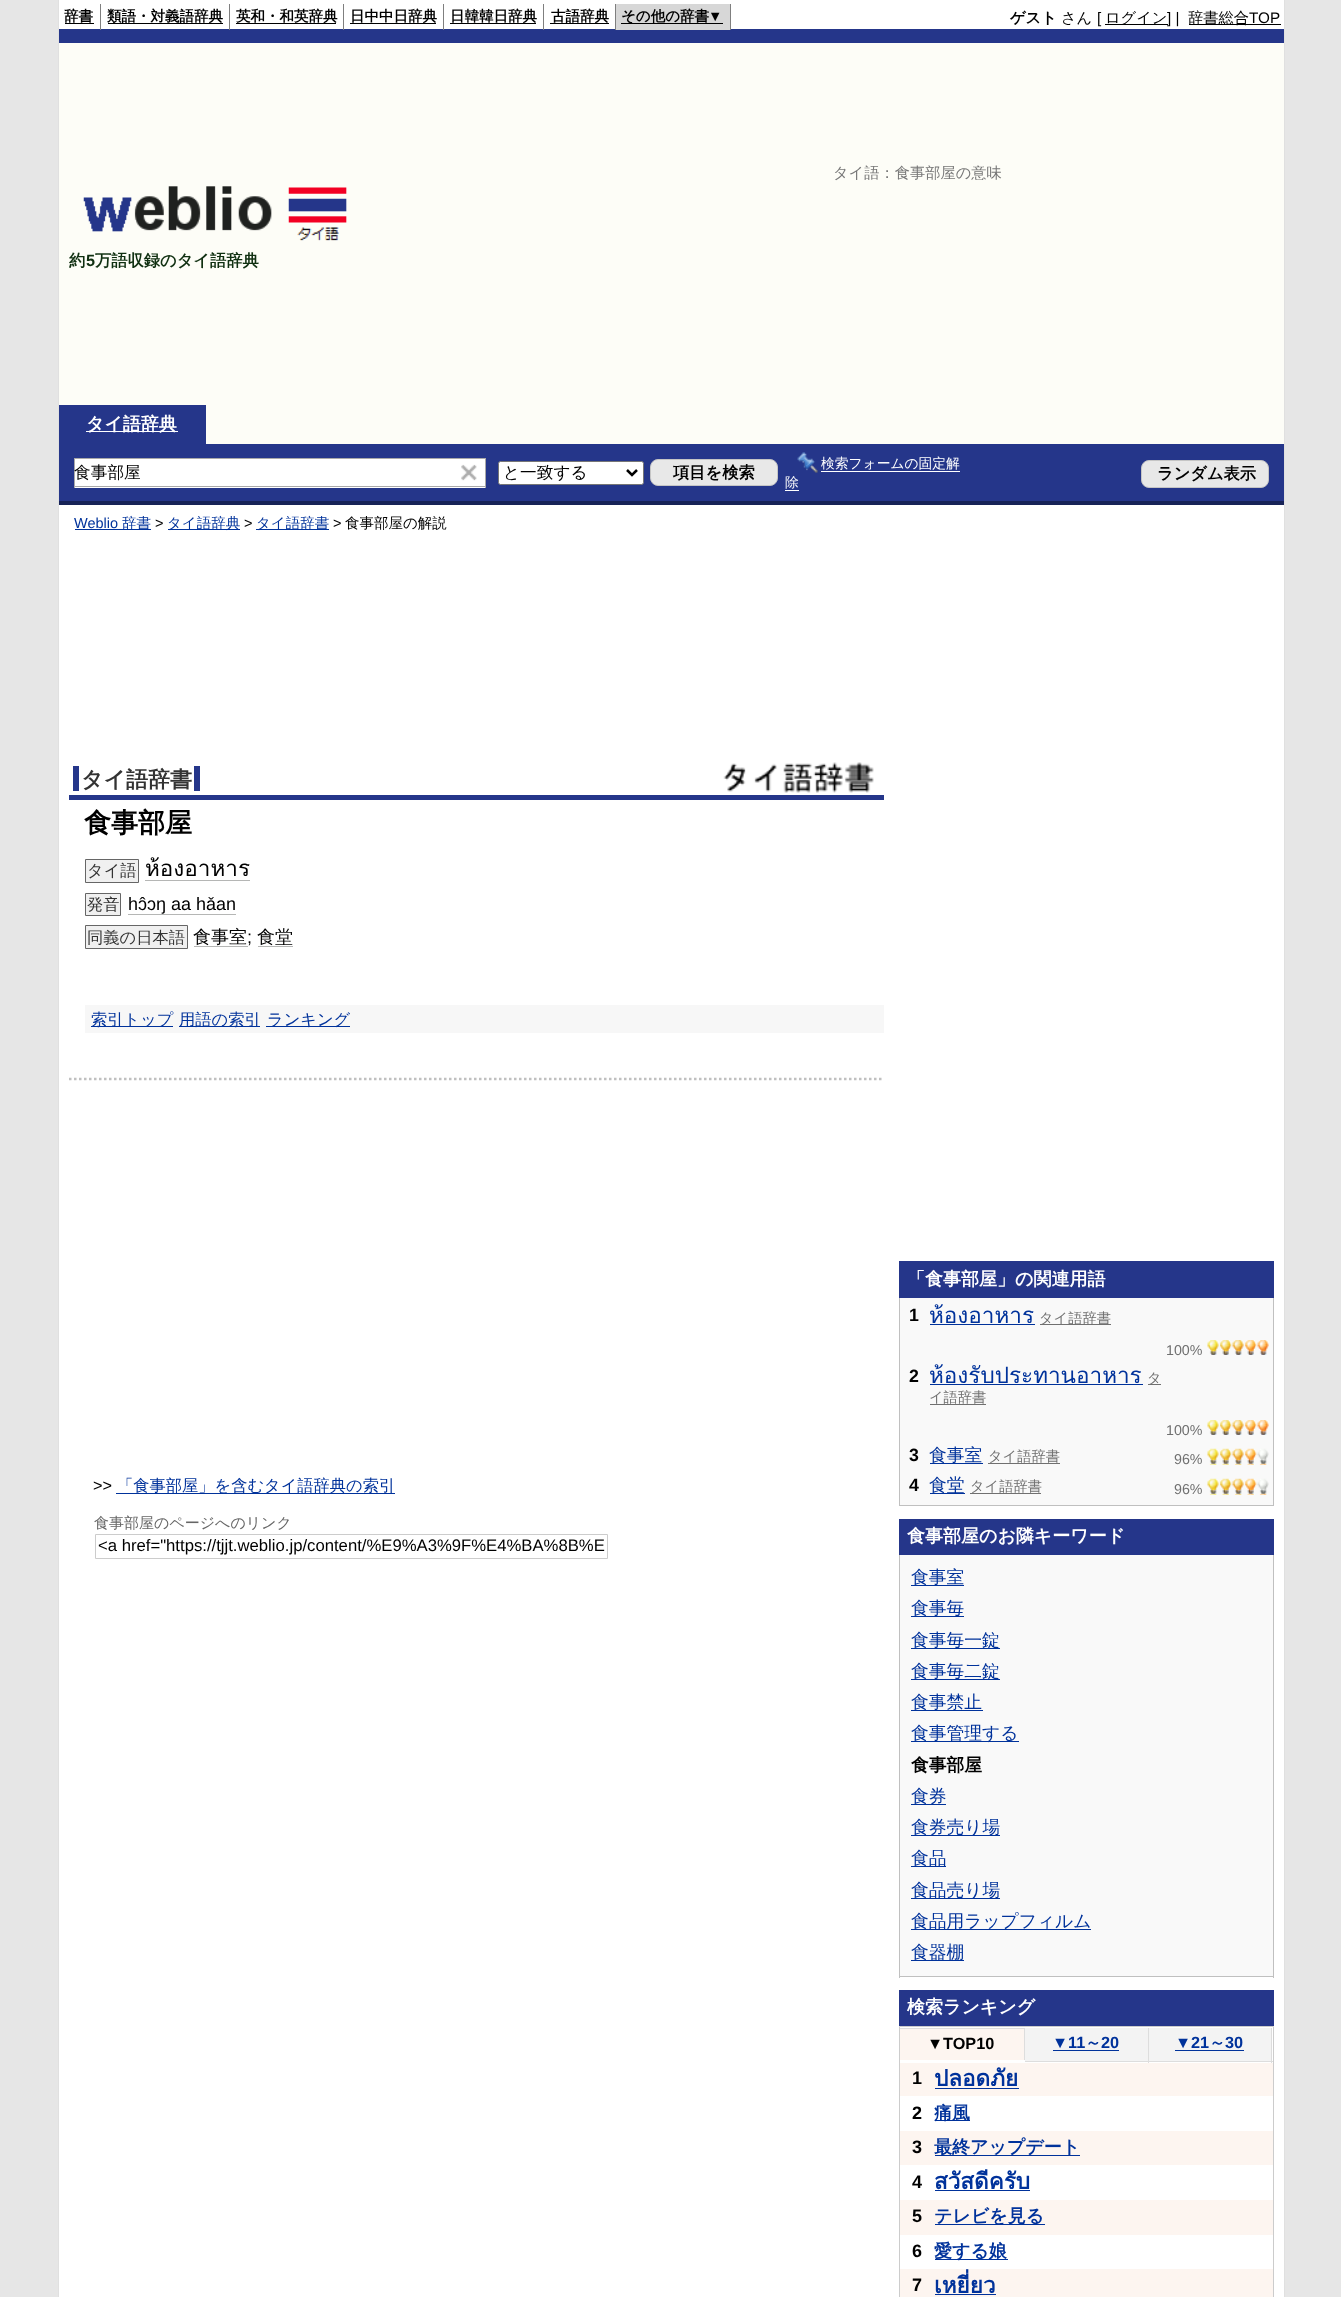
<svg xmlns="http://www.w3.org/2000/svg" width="1341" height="2297">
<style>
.a{font:bold 14.5px WenQuanYi Zen Hei;fill:#000}
.b{font:bold 14.5px Liberation Sans;fill:#000}
.c{font:bold 15.25px WenQuanYi Zen Hei;fill:#000}
.d{font:500 15.25px WenQuanYi Zen Hei;fill:#000}
.e{font:15.25px Liberation Sans;fill:#000}
.f{font:500 15.25px WenQuanYi Zen Hei;fill:#777}
.g{font:bold 16.25px WenQuanYi Zen Hei;fill:#103011}
.h{font:bold 16.25px Liberation Sans;fill:#103011}
.i{font:bold 18px WenQuanYi Zen Hei;fill:#fff}
.j{font:500 16.7px WenQuanYi Zen Hei;fill:#000}
.k{font:bold 16.25px WenQuanYi Zen Hei;fill:#000}
.l{font:500 13.75px WenQuanYi Zen Hei;fill:#fff}
.m{font:14.5px Liberation Sans;fill:#00329b}
.n{font:500 14.5px WenQuanYi Zen Hei;fill:#00329b}
.o{font:14.5px Liberation Sans;fill:#000}
.p{font:500 14.5px WenQuanYi Zen Hei;fill:#000}
.q{font:bold 22px WenQuanYi Zen Hei;fill:#333}
.r{font:bold 27px WenQuanYi Zen Hei;fill:#000}
.s{font:500 16.25px WenQuanYi Zen Hei;fill:#333}
.t{font:22.5px Loma;fill:#000}
.u{font:18px Liberation Sans;fill:#000}
.v{font:500 18px WenQuanYi Zen Hei;fill:#000}
.w{font:500 16.25px WenQuanYi Zen Hei;fill:#00329b}
.x{font:16.25px Liberation Sans;fill:#000}
.y{font:500 15px WenQuanYi Zen Hei;fill:#666}
.z{font:16.7px Liberation Sans;fill:#000}
.a1{font:bold 17.75px Liberation Sans;fill:#000}
.b1{font:22.5px Loma;fill:#00329b}
.c1{font:500 14.25px WenQuanYi Zen Hei;fill:#707070}
.d1{font:14.25px Liberation Sans;fill:#707070}
.e1{font:500 17.75px WenQuanYi Zen Hei;fill:#00329b}
.f1{font:bold 17.75px WenQuanYi Zen Hei;fill:#000}
.g1{font:bold 16.25px Liberation Sans;fill:#000}
.h1{font:bold 16.25px Liberation Sans;fill:#00329b}
.i1{font:bold 16.25px WenQuanYi Zen Hei;fill:#00329b}
.j1{font:bold 18px Liberation Sans;fill:#000}
.k1{font:bold 22.5px Loma;fill:#00329b}
.l1{font:bold 18px WenQuanYi Zen Hei;fill:#00329b}
</style>
<rect width="100%" height="100%" fill="#e6e6e6"/>
<path fill="#fff" d="M59 0h1225v2297H59z"/>
<path fill="#e0e0e0" d="M1284 0h1v2297H1284z"/>
<path fill="#e0e0e0" d="M58 0h1v2297H58z"/>
<path fill="#25368a" d="M59 29h1225v14H59z"/>
<path fill="#7f7f7f" d="M100 4h1v26H100z"/>
<path fill="#000" d="M65 23h29v1H65z"/>
<path fill="#7f7f7f" d="M229 4h1v26H229z"/>
<path fill="#000" d="M108 23h115v1H108z"/>
<path fill="#7f7f7f" d="M343 4h1v26H343z"/>
<path fill="#000" d="M236 23h100v1H236z"/>
<path fill="#7f7f7f" d="M443 4h1v26H443z"/>
<path fill="#000" d="M350 23h86v1H350z"/>
<path fill="#7f7f7f" d="M543 4h1v26H543z"/>
<path fill="#000" d="M450 23h86v1H450z"/>
<path fill="#7f7f7f" d="M615 4h1v26H615z"/>
<path fill="#000" d="M550 23h59v1H550z"/>
<path fill="#d7d7d7" d="M616 4h114v26H616z"/>
<path fill="#7f7f7f" d="M730 4h1v26H730z"/>
<path fill="#000" d="M621 23h102v1H621z"/>
<path fill="#000" d="M1105 24h63v1H1105z"/>
<path fill="#000" d="M1189 24h92v1H1189z"/>
<path fill="#fdfdf7" d="M59 43h1225v362H59z"/>
<image href="1.png" x="83" y="186" width="264" height="55"/>
<path fill="#fdfdf7" d="M206 405h1078v39H206z"/>
<path fill="#25368a" d="M59 405h147v39H59z"/>
<path fill="#fff" d="M86 431h92v1H86z"/>
<path fill="#25368a" d="M59 444h1225v57H59z"/>
<path fill="#172357" d="M59 501h1225v4H59z"/>
<path fill="#fff" d="M75 459h410v29H75z"/>
<path fill="#a9a9a9" d="M74 458h412v1H74z"/>
<path fill="#a9a9a9" d="M485 458h1v30H485z"/>
<path fill="#a9a9a9" d="M74 486h412v1H74z"/>
<path fill="#a9a9a9" d="M74 458h1v30H74z"/>
<image href="2.png" x="461" y="464" width="16" height="17"/>
<rect fill="#fff" stroke="#767676" x="498.5" y="461.5" width="145" height="23" rx="2"/>
<path fill="none" stroke="#000" stroke-width="2.5" d="M627 470l5 5l5-5"/>
<rect fill="#e8e8e8" stroke="#c5c5c5" x="650.5" y="459.5" width="127" height="26" rx="7.5"/>
<image href="3.png" x="797" y="452" width="21" height="21"/>
<path fill="#fff" d="M821 471h139v1H821z"/>
<path fill="#fff" d="M785 490h14v1H785z"/>
<rect fill="#e8e8e8" stroke="#c5c5c5" x="1141.5" y="460.5" width="127" height="27" rx="7.5"/>
<path fill="#00329b" d="M75 529h76v1H75z"/>
<path fill="#00329b" d="M168 529h72v1H168z"/>
<path fill="#00329b" d="M256 529h73v1H256z"/>
<path fill="#25368a" d="M69 795h815v5H69z"/>
<path fill="#25368a" d="M194 766h6v25H194z"/>
<path fill="#25368a" d="M73 766h6v25H73z"/>
<image href="4.png" x="723" y="762" width="151" height="31"/>
<path fill="#f0f0f0" stroke="#666" d="M85.5 859.5h53v23H85.5z"/>
<path fill="#b5b6b5" d="M145 880h105v1H145z"/>
<path fill="#f0f0f0" stroke="#666" d="M85.5 893.5h35v22H85.5z"/>
<path fill="#b5b6b5" d="M128 914h108v1H128z"/>
<path fill="#f0f0f0" stroke="#666" d="M85.5 925.5h102v23H85.5z"/>
<path fill="#b5b6b5" d="M194 946h54v1H194z"/>
<path fill="#b5b6b5" d="M258 946h35v1H258z"/>
<path fill="#f7f7f7" d="M85 1005h799v28H85z"/>
<path fill="#00329b" d="M91 1026h82v1H91z"/>
<path fill="#00329b" d="M179 1026h81v1H179z"/>
<path fill="#00329b" d="M266 1026h84v1H266z"/>
<path fill="none" stroke="#c0c0c0" stroke-width="2.5" stroke-dasharray="2.5 2.5" d="M69 1079h815"/>
<path fill="#00329b" d="M116 1493h279v1H116z"/>
<path fill="none" stroke="#ccc" d="M95.5 1534.5h512v24H95.5z"/>
<path fill="#25368a" d="M899 1261h375v37H899z"/>
<path fill="#f9f9f9" d="M900 1298h373v207H900z"/>
<path fill="#c0c0c0" d="M1273 1298h1v208H1273z"/>
<path fill="#c0c0c0" d="M899 1505h375v1H899z"/>
<path fill="#c0c0c0" d="M899 1298h1v208H899z"/>
<path fill="#00329b" d="M930 1324h105v1H930z"/>
<path fill="#707070" d="M1040 1324h71v1H1040z"/>
<image href="5.png" x="1207" y="1340" width="62" height="15"/>
<path fill="#00329b" d="M930 1384h213v1H930z"/>
<path fill="#707070" d="M1148 1384h13v1H1148z"/>
<path fill="#707070" d="M930 1404h56v1H930z"/>
<image href="5.png" x="1207" y="1420" width="62" height="15"/>
<path fill="#00329b" d="M930 1463h53v1H930z"/>
<path fill="#707070" d="M988 1463h72v1H988z"/>
<image href="6.png" x="1207" y="1448" width="62" height="17"/>
<path fill="#00329b" d="M930 1493h35v1H930z"/>
<path fill="#707070" d="M970 1493h71v1H970z"/>
<image href="6.png" x="1207" y="1478" width="62" height="17"/>
<path fill="#25368a" d="M899 1519h375v36H899z"/>
<path fill="#f9f9f9" d="M900 1555h373v421H900z"/>
<path fill="#c0c0c0" d="M1273 1555h1v423H1273z"/>
<path fill="#c0c0c0" d="M899 1976h375v1H899z"/>
<path fill="#c0c0c0" d="M899 1555h1v423H899z"/>
<path fill="#00329b" d="M911 1585h53v1H911z"/>
<path fill="#00329b" d="M911 1616h53v1H911z"/>
<path fill="#00329b" d="M911 1648h89v1H911z"/>
<path fill="#00329b" d="M911 1679h89v1H911z"/>
<path fill="#00329b" d="M911 1710h72v1H911z"/>
<path fill="#00329b" d="M911 1741h108v1H911z"/>
<path fill="#00329b" d="M911 1804h35v1H911z"/>
<path fill="#00329b" d="M911 1835h89v1H911z"/>
<path fill="#00329b" d="M911 1866h35v1H911z"/>
<path fill="#00329b" d="M911 1898h89v1H911z"/>
<path fill="#00329b" d="M911 1929h180v1H911z"/>
<path fill="#00329b" d="M911 1960h53v1H911z"/>
<path fill="#25368a" d="M899 1990h375v36H899z"/>
<path fill="none" stroke="#ccc" d="M899.5 2026.5h374v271H899.5z"/>
<path fill="#fdf5f0" d="M900 2029h124v31H900z"/>
<path fill="#ddd" d="M900 2028h125v1H900z"/>
<path fill="#ddd" d="M1024 2028h1v32H1024z"/>
<path fill="#f3f3f3" d="M1025 2028h123v33H1025z"/>
<path fill="#ddd" d="M1148 2028h1v35H1148z"/>
<path fill="#ddd" d="M1025 2061h124v1H1025z"/>
<path fill="#00329b" d="M1053 2050h66v1H1053z"/>
<path fill="#f3f3f3" d="M1149 2028h122v33H1149z"/>
<path fill="#ddd" d="M1271 2028h1v35H1271z"/>
<path fill="#ddd" d="M1149 2061h124v1H1149z"/>
<path fill="#00329b" d="M1175 2050h69v1H1175z"/>
<path fill="#fdf5f0" d="M900 2063h373v33H900z"/>
<path fill="#00329b" d="M935 2088h84v1H935z"/>
<path fill="#00329b" d="M935 2120h35v1H935z"/>
<path fill="#fdf5f0" d="M900 2131h373v34H900z"/>
<path fill="#00329b" d="M935 2155h145v1H935z"/>
<path fill="#00329b" d="M935 2190h95v1H935z"/>
<path fill="#fdf5f0" d="M900 2200h373v35H900z"/>
<path fill="#00329b" d="M935 2224h110v1H935z"/>
<path fill="#00329b" d="M935 2259h73v1H935z"/>
<path fill="#fdf5f0" d="M900 2269h373v28H900z"/>
<path fill="#00329b" d="M935 2294h61v1H935z"/>
<text class="a" x="64" y="21">辞書</text>
<text class="a" x="107" y="21">類語・対義語辞典</text>
<text class="a" x="236" y="21">英和・和英辞典</text>
<text class="a" x="350" y="21">日中中日辞典</text>
<text class="a" x="450" y="21">日韓韓日辞典</text>
<text class="a" x="551" y="21">古語辞典</text>
<text class="a" x="621" y="21">その他の辞書</text>
<text class="b" x="708" y="21">▼</text>
<text class="c" x="1010" y="23">ゲスト</text>
<text class="d" x="1061" y="23">さん</text>
<text class="e" x="1097" y="23">[</text>
<text class="d" x="1105" y="23">ログイン</text>
<text class="e" x="1167" y="23">] |</text>
<text class="d" x="1188" y="23">辞書総合</text>
<text class="e" x="1249" y="23">TOP</text>
<text class="f" x="833" y="178">タイ語：食事部屋の意味</text>
<text class="g" x="69" y="266">約</text>
<text class="h" x="86" y="266">5</text>
<text class="g" x="95" y="266">万語収録のタイ語辞典</text>
<text class="i" x="86" y="430">タイ語辞典</text>
<text class="j" x="74" y="478">食事部屋</text>
<text class="j" x="503" y="478">と一致する</text>
<text class="k" x="673" y="478">項目を検索</text>
<text class="l" x="821" y="468">検索フォームの固定解</text>
<text class="l" x="785" y="487">除</text>
<text class="k" x="1157" y="479">ランダム表示</text>
<text class="m" x="74" y="528">Weblio</text>
<text class="n" x="122" y="528">辞書</text>
<text class="o" x="155" y="528">&gt;</text>
<text class="n" x="167" y="528">タイ語辞典</text>
<text class="o" x="244" y="528">&gt;</text>
<text class="n" x="256" y="528">タイ語辞書</text>
<text class="o" x="333" y="528">&gt;</text>
<text class="p" x="345" y="528">食事部屋の解説</text>
<text class="q" x="81" y="787">タイ語辞書</text>
<text class="r" x="84" y="832">食事部屋</text>
<text class="s" x="87" y="876">タイ語</text>
<text class="t" x="145" y="876">ห้องอาหาร</text>
<text class="s" x="87" y="910">発音</text>
<text class="u" x="128" y="910">hɔ̂ɔŋ aa hǎan</text>
<text class="s" x="87" y="943">同義の日本語</text>
<text class="v" x="193" y="943">食事室</text>
<text class="u" x="247" y="943">;</text>
<text class="v" x="257" y="943">食堂</text>
<text class="w" x="91" y="1025">索引トップ</text>
<text class="w" x="179" y="1025">用語の索引</text>
<text class="w" x="267" y="1025">ランキング</text>
<text class="x" x="93" y="1491">&gt;&gt;</text>
<text class="w" x="117" y="1491">「食事部屋」を含むタイ語辞典の索引</text>
<text class="y" x="94" y="1528">食事部屋のページへのリンク</text>
<text class="z" x="98" y="1551">&lt;a href="https://tjjt.weblio.jp/content/%E9%A3%9F%E4%BA%8B%E</text>
<text class="i" x="907" y="1285">「食事部屋」の関連用語</text>
<text class="a1" x="909" y="1321">1</text>
<text class="b1" x="929" y="1323">ห้องอาหาร</text>
<text class="c1" x="1039" y="1323">タイ語辞書</text>
<text class="d1" x="1166" y="1355">100%</text>
<text class="a1" x="909" y="1382">2</text>
<text class="b1" x="929" y="1383">ห้องรับประทานอาหาร</text>
<text class="c1" x="1147" y="1383">タ</text>
<text class="c1" x="929" y="1402">イ語辞書</text>
<text class="d1" x="1166" y="1435">100%</text>
<text class="a1" x="909" y="1461">3</text>
<text class="e1" x="929" y="1461">食事室</text>
<text class="c1" x="988" y="1461">タイ語辞書</text>
<text class="d1" x="1174" y="1464">96%</text>
<text class="a1" x="909" y="1491">4</text>
<text class="e1" x="929" y="1491">食堂</text>
<text class="c1" x="970" y="1491">タイ語辞書</text>
<text class="d1" x="1174" y="1494">96%</text>
<text class="i" x="907" y="1542">食事部屋のお隣キーワード</text>
<text class="e1" x="911" y="1583">食事室</text>
<text class="e1" x="911" y="1614">食事毎</text>
<text class="e1" x="911" y="1646">食事毎一錠</text>
<text class="e1" x="911" y="1677">食事毎二錠</text>
<text class="e1" x="911" y="1708">食事禁止</text>
<text class="e1" x="911" y="1739">食事管理する</text>
<text class="f1" x="911" y="1771">食事部屋</text>
<text class="e1" x="911" y="1802">食券</text>
<text class="e1" x="911" y="1833">食券売り場</text>
<text class="e1" x="911" y="1864">食品</text>
<text class="e1" x="911" y="1896">食品売り場</text>
<text class="e1" x="911" y="1927">食品用ラップフィルム</text>
<text class="e1" x="911" y="1958">食器棚</text>
<text class="i" x="907" y="2013">検索ランキング</text>
<text class="g1" x="927" y="2049">▼TOP10</text>
<text class="h1" x="1052" y="2048">▼11</text>
<text class="i1" x="1085" y="2048">～</text>
<text class="h1" x="1101" y="2048">20</text>
<text class="h1" x="1175" y="2048">▼21</text>
<text class="i1" x="1209" y="2048">～</text>
<text class="h1" x="1225" y="2048">30</text>
<text class="j1" x="912" y="2084">1</text>
<text class="k1" x="934" y="2086">ปลอดภัย</text>
<text class="j1" x="912" y="2119">2</text>
<text class="l1" x="934" y="2119">痛風</text>
<text class="j1" x="912" y="2153">3</text>
<text class="l1" x="934" y="2153">最終アップデート</text>
<text class="j1" x="912" y="2188">4</text>
<text class="k1" x="934" y="2189">สวัสดีครับ</text>
<text class="j1" x="912" y="2222">5</text>
<text class="l1" x="934" y="2222">テレビを見る</text>
<text class="j1" x="912" y="2257">6</text>
<text class="l1" x="934" y="2257">愛する娘</text>
<text class="j1" x="912" y="2291">7</text>
<text class="k1" x="934" y="2293">เหยี่ยว</text>
</svg>
